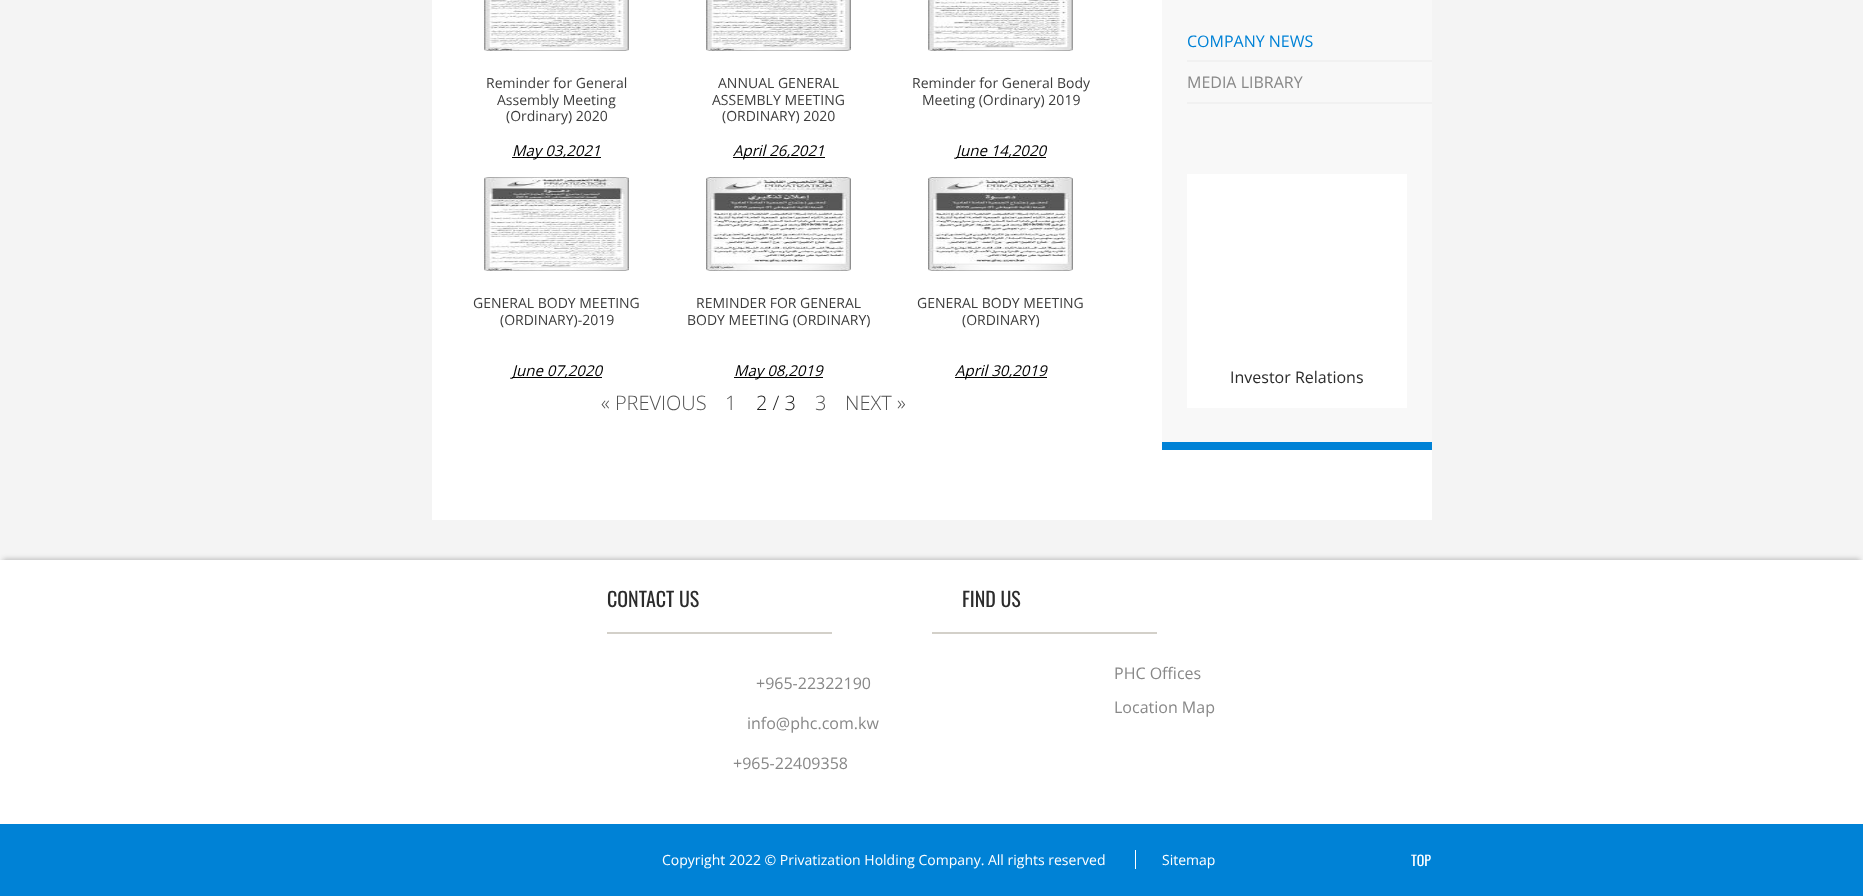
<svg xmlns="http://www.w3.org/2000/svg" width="1863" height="896">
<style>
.a{font:14px Open Sans;fill:#3c3c3c}
.b{font:italic 15px Open Sans;fill:#000}
.c{font:300 20px Open Sans;fill:#525252}
.d{font:300 20px Open Sans;fill:#222}
.e{font:16px Open Sans;fill:#0082d6}
.f{font:16px Open Sans;fill:#888}
.g{font:16px Open Sans;fill:#2c2c2c}
.h{font:20px Oswald;fill:#2c2c2c}
.i{font:14px Open Sans;fill:#fff}
.j{font:14px Oswald;fill:#fff}
</style>
<rect width="100%" height="100%" fill="#f4f4f4"/>
<path fill="#fff" d="M432 0h1000v520H432z"/>
<image href="1.png" x="484" y="0" width="145" height="51"/>
<path fill="#000" d="M512 157h89v1H512z"/>
<image href="2.png" x="706" y="0" width="145" height="51"/>
<path fill="#000" d="M733 157h92v1H733z"/>
<image href="3.png" x="928" y="0" width="145" height="51"/>
<path fill="#000" d="M956 157h90v1H956z"/>
<image href="4.png" x="484" y="177" width="145" height="94"/>
<path fill="#000" d="M512 377h90v1H512z"/>
<image href="5.png" x="706" y="177" width="145" height="94"/>
<path fill="#000" d="M734 377h89v1H734z"/>
<image href="6.png" x="928" y="177" width="145" height="94"/>
<path fill="#000" d="M955 377h92v1H955z"/>
<path fill="#f8f8f8" d="M1162 0h270v442H1162z"/>
<path fill="#0082d6" d="M1162 442h270v8H1162z"/>
<path fill="#f1f1f1" d="M1187 60h245v2H1187z"/>
<path fill="#f1f1f1" d="M1187 102h245v2H1187z"/>
<path fill="#fff" d="M1187 174h220v234H1187z"/>
<path fill="#3232324d" filter="blur(2.5px)" d="M3 559h1857v258H3z"/>
<path fill="#fff" d="M0 560h1863v264H0z"/>
<path fill="#d3d0c9" d="M607 632h225v2H607z"/>
<path fill="#d3d0c9" d="M932 632h225v2H932z"/>
<path fill="#0082d6" d="M0 824h1863v72H0z"/>
<path fill="#fff" d="M1135 850h1v19H1135z"/>
<text class="a" x="486" y="88">Reminder for General</text>
<text class="a" x="497" y="105">Assembly Meeting</text>
<text class="a" x="506" y="121">(Ordinary) 2020</text>
<text class="b" x="512" y="156">May 03,2021</text>
<text class="a" x="718" y="88">ANNUAL GENERAL</text>
<text class="a" x="712" y="105">ASSEMBLY MEETING</text>
<text class="a" x="722" y="121">(ORDINARY) 2020</text>
<text class="b" x="733" y="156">April 26,2021</text>
<text class="a" x="912" y="88">Reminder for General Body</text>
<text class="a" x="922" y="105">Meeting (Ordinary) 2019</text>
<text class="b" x="956" y="156">June 14,2020</text>
<text class="a" x="473" y="308">GENERAL BODY MEETING</text>
<text class="a" x="500" y="325">(ORDINARY)-2019</text>
<text class="b" x="512" y="376">June 07,2020</text>
<text class="a" x="696" y="308">REMINDER FOR GENERAL</text>
<text class="a" x="687" y="325">BODY MEETING (ORDINARY)</text>
<text class="b" x="734" y="376">May 08,2019</text>
<text class="a" x="917" y="308">GENERAL BODY MEETING</text>
<text class="a" x="962" y="325">(ORDINARY)</text>
<text class="b" x="955" y="376">April 30,2019</text>
<text class="c" x="601" y="410">« PREVIOUS</text>
<text class="c" x="725" y="410">1</text>
<text class="d" x="756" y="410">2 / 3</text>
<text class="c" x="815" y="410">3</text>
<text class="c" x="845" y="410">NEXT »</text>
<text class="e" x="1187" y="47">COMPANY NEWS</text>
<text class="f" x="1187" y="88">MEDIA LIBRARY</text>
<text class="g" x="1230" y="383">Investor Relations</text>
<text class="h" x="607" y="607">CONTACT US</text>
<text class="f" x="756" y="689">+965-22322190</text>
<text class="f" x="747" y="729">info@phc.com.kw</text>
<text class="f" x="733" y="769">+965-22409358</text>
<text class="h" x="962" y="607">FIND US</text>
<text class="f" x="1114" y="679">PHC Offices</text>
<text class="f" x="1114" y="713">Location Map</text>
<text class="i" x="662" y="865">Copyright 2022 © Privatization Holding Company. All rights reserved</text>
<text class="i" x="1162" y="865">Sitemap</text>
<text class="j" x="1411" y="866">TOP</text>
</svg>
